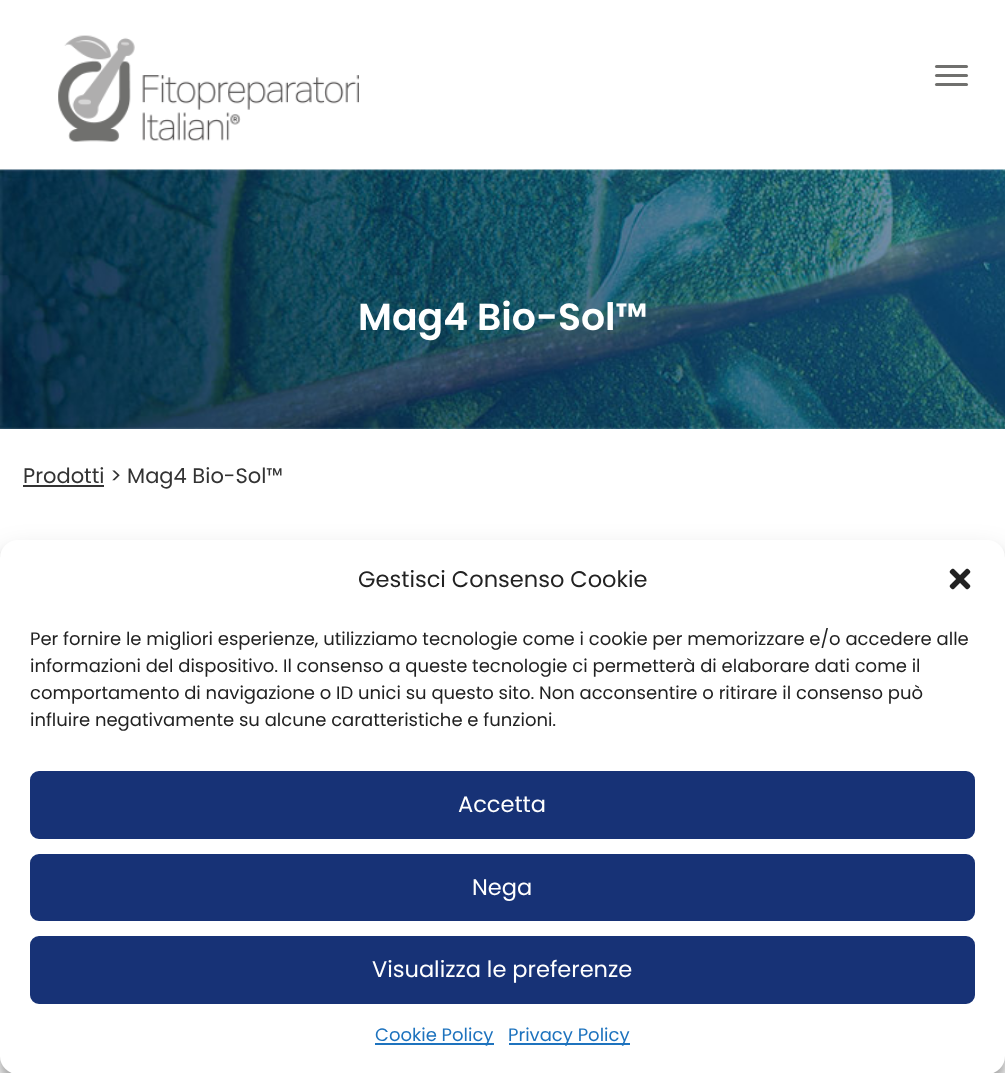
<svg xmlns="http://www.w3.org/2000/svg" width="1005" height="1073">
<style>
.a{font:600 37.75px Poppins;fill:#fff}
.b{font:21px Poppins;fill:#333}
.c{font:22.5px Poppins;fill:#222}
.d{font:18px Poppins;fill:#222}
.e{font:22.5px Poppins;fill:#fff}
.f{font:18px Poppins;fill:#1e73be}
</style>
<rect width="100%" height="100%" fill="#fff"/>
<image href="1.png" x="58" y="35" width="301" height="107"/>
<rect fill="#70706e" x="935" y="65" width="33" height="3" rx="1.5"/>
<rect fill="#70706e" x="935" y="74" width="33" height="3" rx="1.5"/>
<rect fill="#70706e" x="935" y="83" width="33" height="3" rx="1.5"/>
<image href="2.png" x="0" y="169" width="1005" height="260"/>
<path fill="#333" d="M23 485h81v2H23z"/>
<rect fill="#0000003b" filter="blur(4.5px)" y="549" width="1005" height="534" rx="18"/>
<rect fill="#00000030" filter="blur(15px)" y="555" width="1005" height="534" rx="18"/>
<rect fill="#fff" y="540" width="1005" height="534" rx="18"/>
<image href="3.png" x="949" y="568" width="22" height="22"/>
<rect fill="#173276" stroke="#173276" stroke-width="2" x="31" y="772" width="943" height="66" rx="8"/>
<rect fill="#173276" stroke="#173276" stroke-width="2" x="31" y="855" width="943" height="65" rx="8"/>
<rect fill="#173276" stroke="#173276" stroke-width="2" x="31" y="937" width="943" height="66" rx="8"/>
<path fill="#1e73be" d="M375 1043h119v2H375z"/>
<path fill="#1e73be" d="M509 1043h121v2H509z"/>
<text class="a" x="358" y="330">Mag4 Bio-Sol™</text>
<text class="b" x="23" y="483">Prodotti &gt; Mag4 Bio-Sol™</text>
<text class="c" x="358" y="587">Gestisci Consenso Cookie</text>
<text class="d" x="30" y="645">Per fornire le migliori esperienze, utilizziamo tecnologie come i cookie per memorizzare e/o accedere alle</text>
<text class="d" x="30" y="672">informazioni del dispositivo. Il consenso a queste tecnologie ci permetterà di elaborare dati come il</text>
<text class="d" x="30" y="699">comportamento di navigazione o ID unici su questo sito. Non acconsentire o ritirare il consenso può</text>
<text class="d" x="30" y="726">influire negativamente su alcune caratteristiche e funzioni.</text>
<text class="e" x="458" y="812">Accetta</text>
<text class="e" x="472" y="895">Nega</text>
<text class="e" x="372" y="977">Visualizza le preferenze</text>
<text class="f" x="375" y="1041">Cookie Policy</text>
<text class="f" x="508" y="1041">Privacy Policy</text>
</svg>
